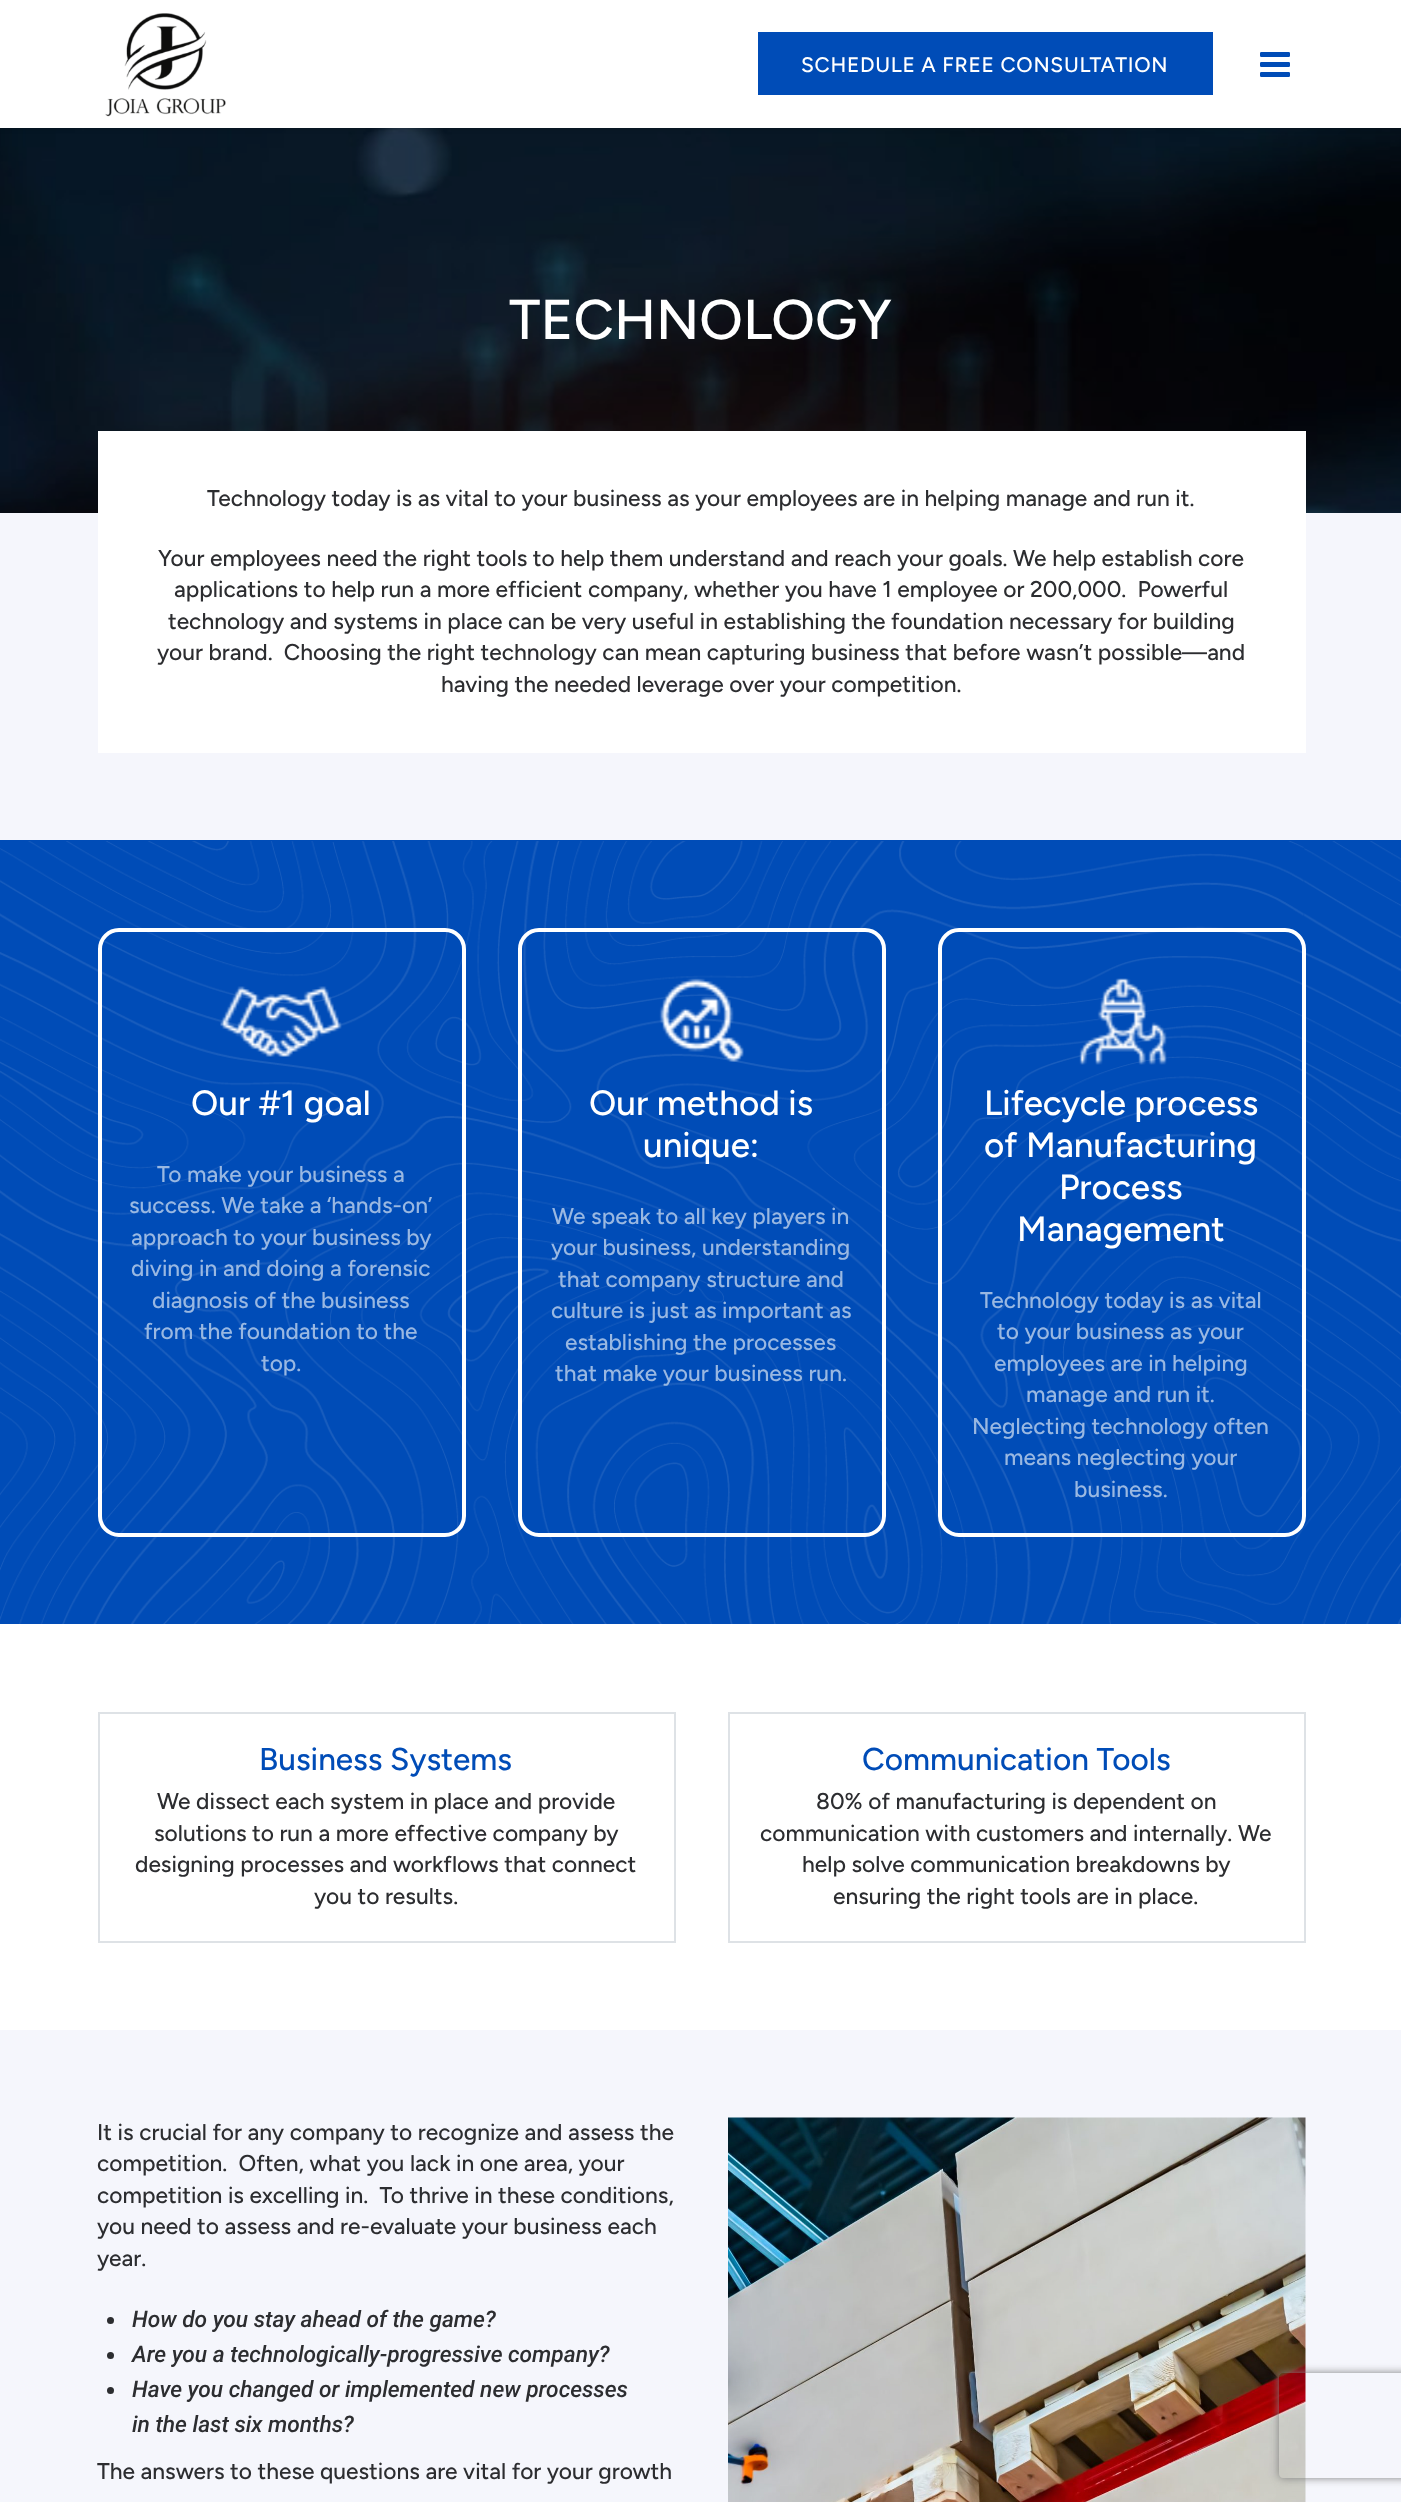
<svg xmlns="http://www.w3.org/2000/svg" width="1401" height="2502">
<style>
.a{font:500 21px Figtree;letter-spacing:0.7px;fill:#fff}
.b{font:500 56px Figtree;fill:#fff}
.c{font:500 22.75px Figtree;fill:#2c2d30}
.d{font:500 35px Figtree;fill:#fff}
.e{font:500 22.75px Figtree;fill:#99b8e2}
.f{font:500 31.5px Figtree;fill:#004cb7}
.g{font:italic 500 22.75px Roboto;fill:#2c2d30}
</style>
<defs>
<clipPath id="clip1"><path d="M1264 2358h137v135h-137zm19 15h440c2 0 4 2 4 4v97c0 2-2 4-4 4h-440c-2 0-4-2-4-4v-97c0-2 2-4 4-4z" clip-rule="evenodd"/></clipPath>
</defs>
<rect width="100%" height="100%" fill="#fff"/>
<image href="3.png" x="0" y="128" width="1401" height="385"/>
<path fill="#00000014" filter="blur(2px)" d="M0 2h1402v128H0z"/>
<path fill="#fff" d="M0 0h1401v128H0z"/>
<image href="1.png" x="105" y="13" width="121" height="104"/>
<path fill="#004cb7" d="M758 32h455v63H758z"/>
<image href="2.png" x="1260" y="52" width="30" height="25"/>
<path fill="#f5f6fc" d="M0 513h1401v327H0z"/>
<path fill="#fff" d="M98 431h1208v322H98z"/>
<path fill="#004cb7" d="M0 840h1401v784H0z"/>
<image href="4.png" x="0" y="841" width="1401" height="783"/>
<rect fill="none" stroke="#fff" stroke-width="4" x="100" y="930" width="364" height="605" rx="19"/>
<image href="5.png" x="220" y="986" width="122" height="71"/>
<rect fill="none" stroke="#fff" stroke-width="4" x="520" y="930" width="364" height="605" rx="19"/>
<image href="6.png" x="659" y="978" width="85" height="84"/>
<rect fill="none" stroke="#fff" stroke-width="4" x="940" y="930" width="364" height="605" rx="19"/>
<image href="7.png" x="1079" y="978" width="88" height="87"/>
<path fill="none" stroke="#dee2e6" stroke-width="2" d="M99 1713h576v229H99z"/>
<path fill="none" stroke="#dee2e6" stroke-width="2" d="M729 1713h576v229H729z"/>
<path fill="#f5f6fc" d="M0 2030h1401v472H0z"/>
<circle fill="#2c2d30" cx="110.5" cy="2320.5" r="3.5"/>
<circle fill="#2c2d30" cx="110.5" cy="2355.5" r="3.5"/>
<circle fill="#2c2d30" cx="110.5" cy="2390.5" r="3.5"/>
<image href="8.png" x="728" y="2117" width="578" height="385"/>
<g clip-path="url(#clip1)">
<rect fill="#808080" filter="blur(4.5px)" x="1279" y="2373" width="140" height="105" rx="4"/>
</g>
<text class="a" x="801" y="72">SCHEDULE A FREE CONSULTATION</text>
<text class="b" x="509" y="339">TECHNOLOGY</text>
<text class="c" x="207" y="506">Technology today is as vital to your business as your employees are in helping manage and run it.</text>
<text class="c" x="158" y="566">Your employees need the right tools to help them understand and reach your goals. We help establish core</text>
<text class="c" xml:space="preserve" x="174" y="597">applications to help run a more efficient company, whether you have 1 employee or 200,000.  Powerful</text>
<text class="c" x="168" y="629">technology and systems in place can be very useful in establishing the foundation necessary for building</text>
<text class="c" xml:space="preserve" x="157" y="660">your brand.  Choosing the right technology can mean capturing business that before wasn’t possible—and</text>
<text class="c" x="441" y="692">having the needed leverage over your competition.</text>
<text class="d" x="191" y="1115">Our #1 goal</text>
<text class="e" x="157" y="1182">To make your business a</text>
<text class="e" x="129" y="1213">success. We take a ‘hands-on’</text>
<text class="e" x="131" y="1245">approach to your business by</text>
<text class="e" x="131" y="1276">diving in and doing a forensic</text>
<text class="e" x="152" y="1308">diagnosis of the business</text>
<text class="e" x="144" y="1339">from the foundation to the</text>
<text class="e" x="261" y="1371">top.</text>
<text class="d" x="589" y="1115">Our method is</text>
<text class="d" x="643" y="1157">unique:</text>
<text class="e" x="552" y="1224">We speak to all key players in</text>
<text class="e" x="551" y="1255">your business, understanding</text>
<text class="e" x="558" y="1287">that company structure and</text>
<text class="e" x="551" y="1318">culture is just as important as</text>
<text class="e" x="565" y="1350">establishing the processes</text>
<text class="e" x="555" y="1381">that make your business run.</text>
<text class="d" x="984" y="1115">Lifecycle process</text>
<text class="d" x="984" y="1157">of Manufacturing</text>
<text class="d" x="1059" y="1199">Process</text>
<text class="d" x="1017" y="1241">Management</text>
<text class="e" x="980" y="1308">Technology today is as vital</text>
<text class="e" x="997" y="1339">to your business as your</text>
<text class="e" x="994" y="1371">employees are in helping</text>
<text class="e" x="1026" y="1402">manage and run it.</text>
<text class="e" x="972" y="1434">Neglecting technology often</text>
<text class="e" x="1004" y="1465">means neglecting your</text>
<text class="e" x="1074" y="1497">business.</text>
<text class="f" x="259" y="1770">Business Systems</text>
<text class="c" x="157" y="1809">We dissect each system in place and provide</text>
<text class="c" x="154" y="1841">solutions to run a more effective company by</text>
<text class="c" x="135" y="1872">designing processes and workflows that connect</text>
<text class="c" x="314" y="1904">you to results.</text>
<text class="f" x="862" y="1770">Communication Tools</text>
<text class="c" x="816" y="1809">80% of manufacturing is dependent on</text>
<text class="c" x="760" y="1841">communication with customers and internally. We</text>
<text class="c" x="802" y="1872">help solve communication breakdowns by</text>
<text class="c" x="833" y="1904">ensuring the right tools are in place.</text>
<text class="c" x="97" y="2140">It is crucial for any company to recognize and assess the</text>
<text class="c" xml:space="preserve" x="97" y="2171">competition.  Often, what you lack in one area, your</text>
<text class="c" xml:space="preserve" x="97" y="2203">competition is excelling in.  To thrive in these conditions,</text>
<text class="c" x="97" y="2234">you need to assess and re-evaluate your business each</text>
<text class="c" x="97" y="2266">year.</text>
<text class="g" x="132" y="2327">How do you stay ahead of the game?</text>
<text class="g" x="132" y="2362">Are you a technologically-progressive company?</text>
<text class="g" x="132" y="2397">Have you changed or implemented new processes</text>
<text class="g" x="132" y="2432">in the last six months?</text>
<text class="c" x="97" y="2479">The answers to these questions are vital for your growth</text>
</svg>
